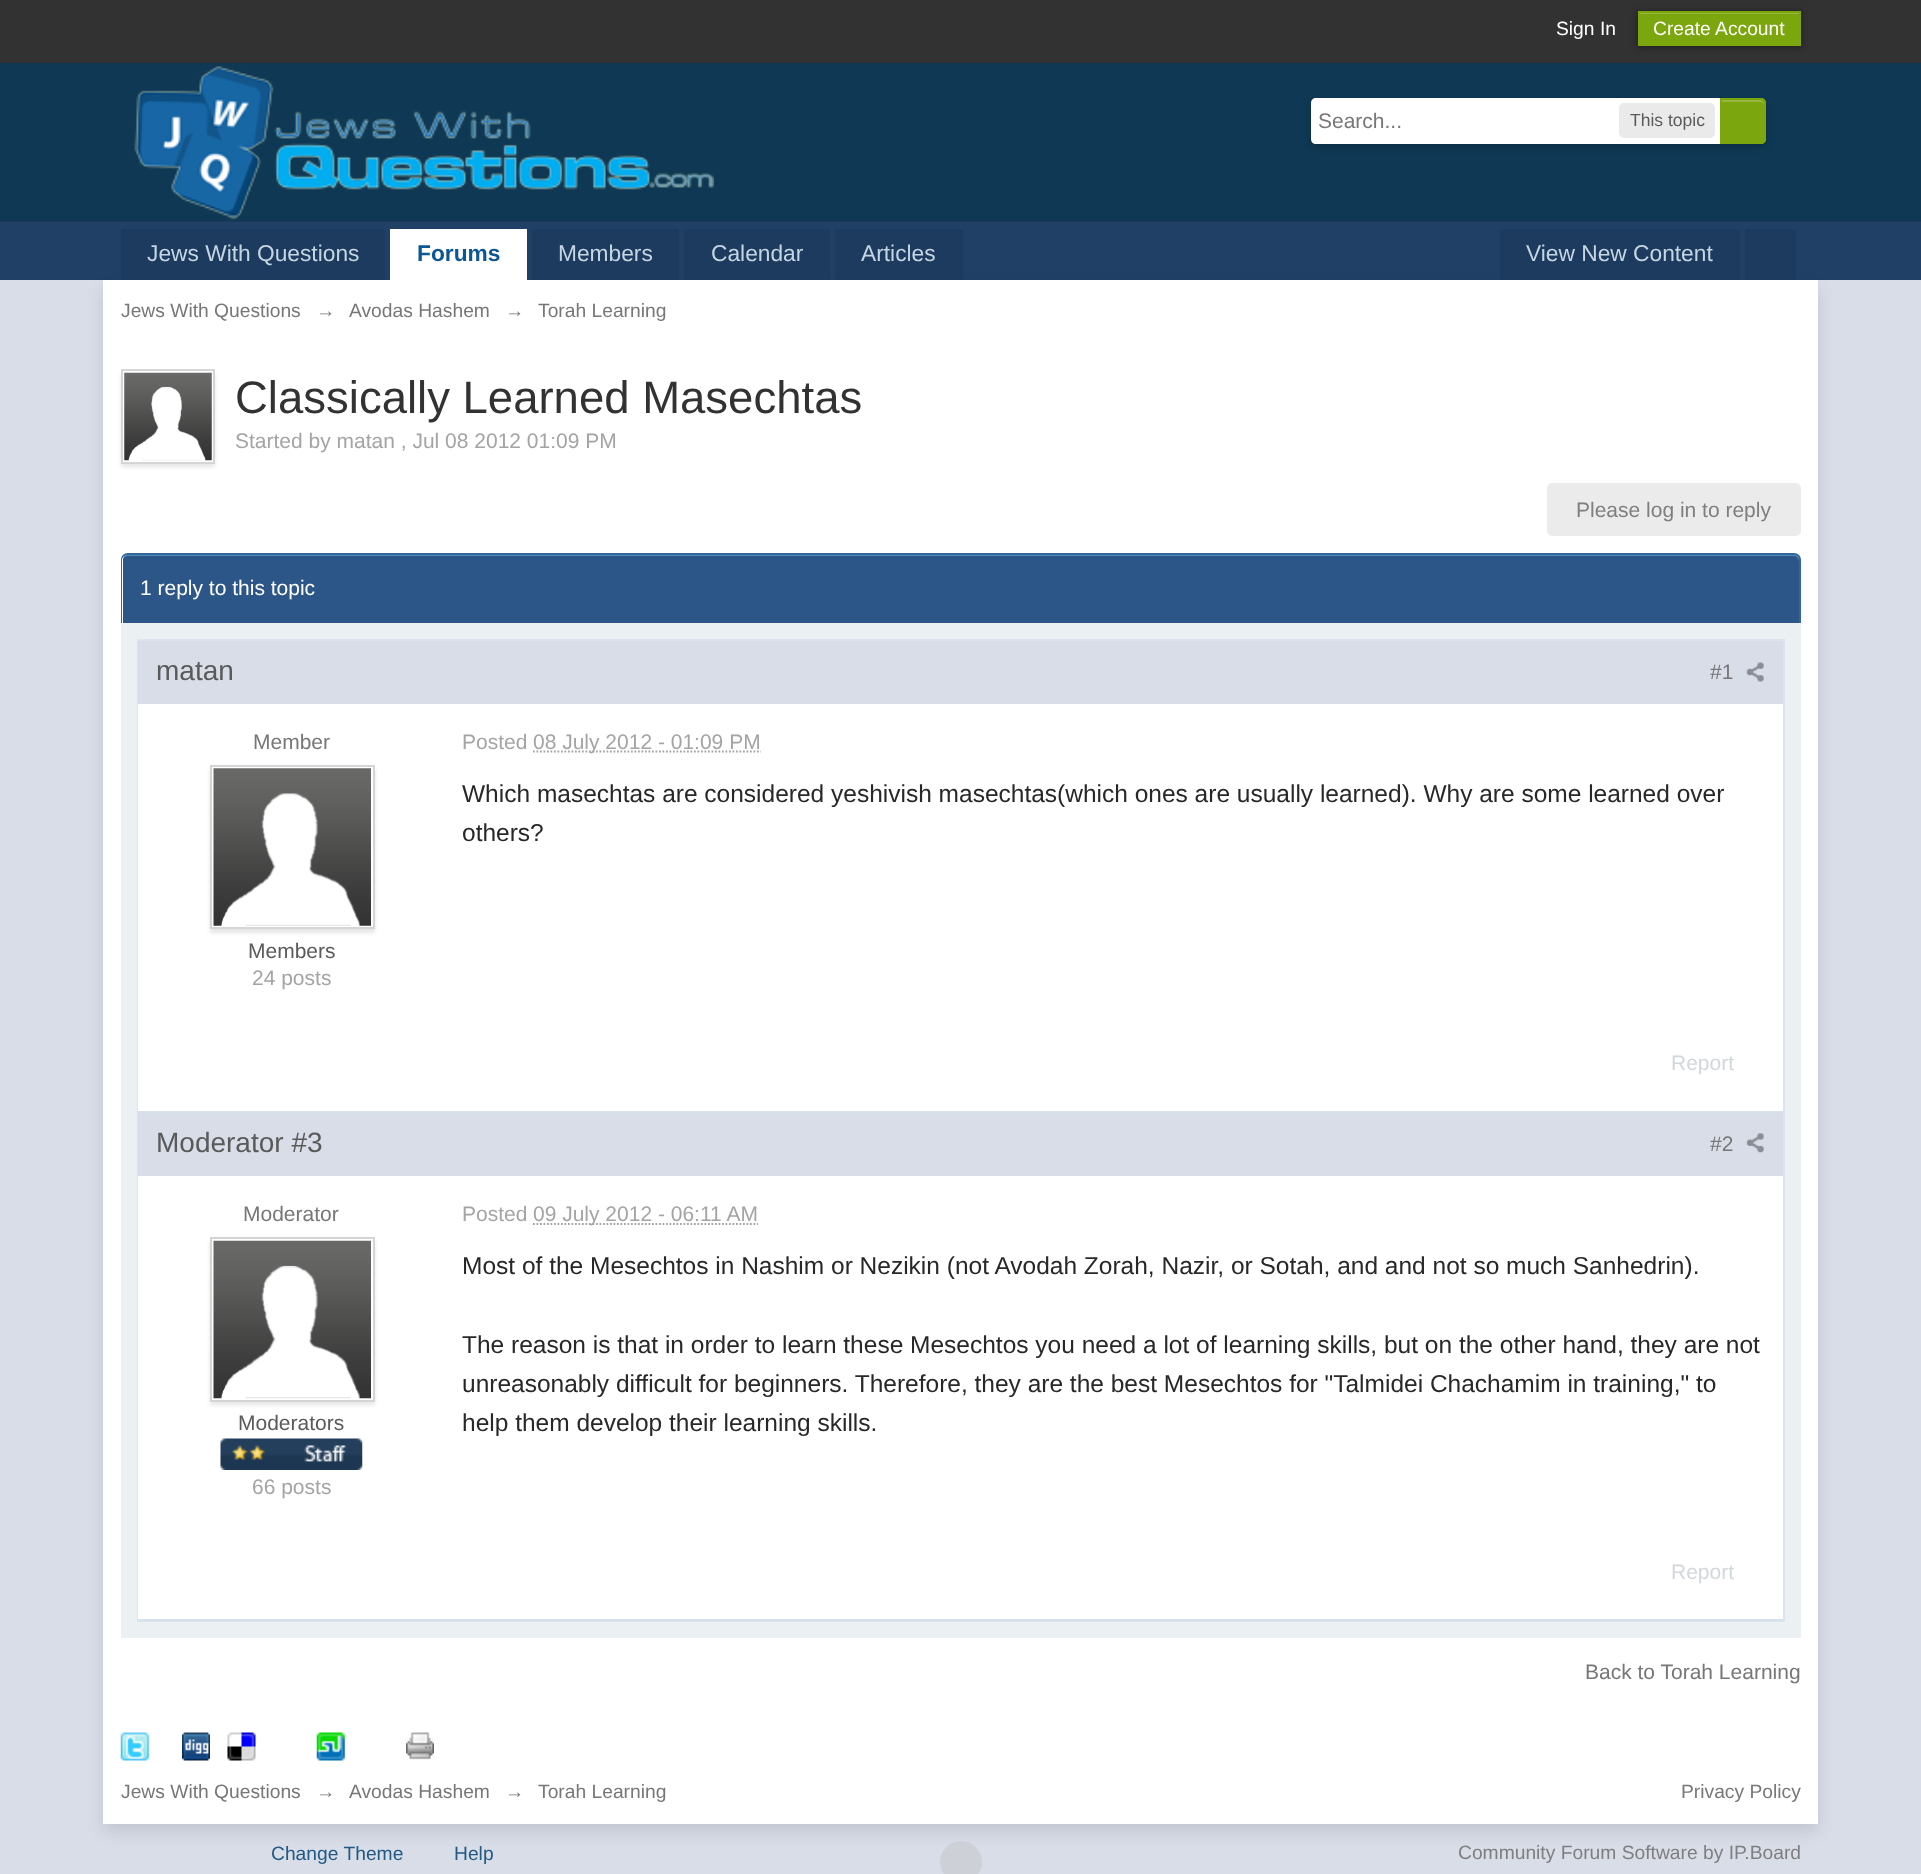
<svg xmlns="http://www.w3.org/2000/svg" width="1921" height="1874">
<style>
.a{font:19.25px Liberation Sans;fill:#fff}
.b{font:21px Liberation Sans;fill:#777}
.c{font:17.5px Liberation Sans;fill:#5a5a5a}
.d{font:22.75px Liberation Sans;fill:#c5d5e2}
.e{font:bold 22.75px Liberation Sans;fill:#0b5794}
.f{font:19.25px Liberation Sans;fill:#777}
.g{font:45.5px Liberation Sans;fill:#323232}
.h{font:21px Liberation Sans;fill:#a4a4a4}
.i{font:21px Liberation Sans;fill:#7f7f7f}
.j{font:21px Liberation Sans;fill:#fff}
.k{font:28px Liberation Sans;fill:#5a5a5a}
.l{font:21px Liberation Sans;fill:#5a5a5a}
.m{font:24.5px Liberation Sans;fill:#282828}
.n{font:21px Liberation Sans;fill:#d2d7dc}
.o{font:19.25px Liberation Sans;fill:#225985}
.p{font:19.25px Liberation Sans;fill:#7f7f7f}
</style>
<rect width="100%" height="100%" fill="#d8dde8"/>
<path fill="#323232" d="M0 0h1921v63H0z"/>
<path fill="#00000066" filter="blur(3.5px)" d="M1638 12h163v35H1638z"/>
<path fill="#7ba60d" d="M1640 14h159v30H1640z"/>
<path fill="#95b83d" d="M1640 13h159v1H1640z"/>
<path fill="none" stroke="#7ba60d" stroke-width="2" d="M1639 12h161v33H1639z"/>
<path fill="#0f3854" d="M0 63h1921v158H0z"/>
<path fill="#1b3759" d="M0 221h1921v1H0z"/>
<image href="1.png" x="134" y="66" width="580" height="154"/>
<rect fill="#00000033" filter="blur(3.5px)" x="1311" y="102" width="455" height="45" rx="7"/>
<path fill="#fff" d="M1316 98h443c4 0 7 3 7 7v32c0 4-3 7-7 7h-443c-3 0-5-2-5-5v-36c0-3 2-5 5-5z"/>
<rect fill="#eaeaea" x="1619" y="103" width="96" height="35" rx="5"/>
<path fill="#7ba60d" d="M1720 98h41c3 0 5 2 5 5v36c0 3-2 5-5 5h-41z"/>
<path fill="#95b83d" d="M1722 102h38c2 0 4 1 4 3v-1c0-2-2-4-4-4h-38z"/>
<path fill="none" stroke="#7ba60d" stroke-width="2" d="M1721 99h40c2 0 4 2 4 4v36c0 2-2 4-4 4h-40z"/>
<path fill="#204066" d="M0 222h1921v58H0z"/>
<path fill="#0000001a" filter="blur(8px)" d="M103 289h1715v1543H103z"/>
<path fill="#1c3b5f" d="M121 229h264v51H121z"/>
<path fill="#fff" d="M390 229h137v51H390z"/>
<path fill="#1c3b5f" d="M532 229h147v51H532z"/>
<path fill="#1c3b5f" d="M684 229h146v51H684z"/>
<path fill="#1c3b5f" d="M835 229h128v51H835z"/>
<path fill="#1c3b5f" d="M1500 229h240v51H1500z"/>
<path fill="#1c3b5f" d="M1745 229h51v51H1745z"/>
<path fill="#fff" d="M103 280h1715v1544H103z"/>
<path fill="#0000001a" filter="blur(2px)" d="M121 373h94v94H121z"/>
<path fill="#fff" stroke="#d5d5d5" stroke-width="2" d="M122 370h92v93H122z"/>
<image href="2.png" x="124" y="372" width="88" height="89"/>
<rect fill="#ebebeb" x="1547" y="483" width="254" height="53" rx="5"/>
<path fill="#2c5687" d="M128 555h1666c3 0 5 2 5 5v63h-1676v-63c0-3 2-5 5-5z"/>
<path fill="#528cbc" d="M128 556h1666c3 0 5 3 5 6v-2c0-3-2-5-5-5h-1666c-2 0-4 2-5 4c1-2 3-3 5-3z"/>
<path fill="#316897" fill-rule="evenodd" d="M128 553h1666c4 0 7 3 7 7v63h-1680v-63c0-4 3-7 7-7zm0 2h1666c3 0 5 2 5 5v63h-1677v-63c0-3 3-5 6-5z"/>
<path fill="#ebf0f3" d="M121 623h1680v1015H121z"/>
<path fill="none" stroke="#dbe4ef" stroke-width="2" d="M138 640h1646v981H138z"/>
<path fill="#fff" d="M138 704h1645v407H138z"/>
<path fill="#d6e2eb" d="M138 1111h1645v2H138z"/>
<path fill="#d8dde8" d="M138 641h1645v63H138z"/>
<image href="3.png" x="1746" y="662" width="18" height="20"/>
<path fill="#0000001a" filter="blur(2px)" d="M210 768h165v165H210z"/>
<path fill="#fff" stroke="#d5d5d5" stroke-width="2" d="M211 766h163v162H211z"/>
<image href="4.png" x="213" y="768" width="158" height="158"/>
<path fill="none" stroke="#a4a4a4" stroke-width="1.8" stroke-dasharray="1.75 1.75" d="M533 751.5h228"/>
<path fill="#fff" d="M138 1176h1645v443H138z"/>
<path fill="#d6e2eb" d="M138 1619h1645v2H138z"/>
<path fill="#d8dde8" d="M138 1113h1645v63H138z"/>
<image href="5.png" x="1746" y="1133" width="18" height="20"/>
<path fill="#0000001a" filter="blur(2px)" d="M210 1241h165v164H210z"/>
<path fill="#fff" stroke="#d5d5d5" stroke-width="2" d="M211 1238h163v163H211z"/>
<image href="6.png" x="213" y="1240" width="158" height="159"/>
<image href="7.png" x="220" y="1438" width="143" height="32"/>
<path fill="none" stroke="#a4a4a4" stroke-width="1.8" stroke-dasharray="1.75 1.75" d="M533 1224h225"/>
<image href="8.png" x="120" y="1732" width="29" height="29"/>
<image href="9.png" x="182" y="1732" width="28" height="29"/>
<image href="10.png" x="227" y="1732" width="29" height="29"/>
<image href="11.png" x="316" y="1732" width="29" height="29"/>
<image href="12.png" x="406" y="1732" width="28" height="28"/>
<circle fill="#bdbdbd66" cx="961" cy="1862" r="21"/>
<text class="a" x="1556" y="35">Sign In</text>
<text class="a" x="1653" y="35">Create Account</text>
<text class="b" x="1318" y="128">Search...</text>
<text class="c" x="1630" y="126">This topic</text>
<text class="d" x="147" y="261">Jews With Questions</text>
<text class="e" x="417" y="261">Forums</text>
<text class="d" x="558" y="261">Members</text>
<text class="d" x="711" y="261">Calendar</text>
<text class="d" x="861" y="261">Articles</text>
<text class="d" x="1526" y="261">View New Content</text>
<text class="f" x="121" y="317">Jews With Questions</text>
<text class="f" x="316" y="317">→</text>
<text class="f" x="349" y="317">Avodas Hashem</text>
<text class="f" x="505" y="317">→</text>
<text class="f" x="538" y="317">Torah Learning</text>
<text class="g" x="235" y="413">Classically Learned Masechtas</text>
<text class="h" x="235" y="448">Started by matan , Jul 08 2012 01:09 PM</text>
<text class="i" x="1576" y="517">Please log in to reply</text>
<text class="j" x="140" y="595">1 reply to this topic</text>
<text class="k" x="156" y="680">matan</text>
<text class="b" x="1710" y="679">#1</text>
<text class="b" x="253" y="749">Member</text>
<text class="l" x="248" y="958">Members</text>
<text class="h" x="252" y="985">24 posts</text>
<text class="h" x="462" y="749">Posted</text>
<text class="h" x="533" y="749">08 July 2012 - 01:09 PM</text>
<text class="m" x="462" y="802">Which masechtas are considered yeshivish masechtas(which ones are usually learned). Why are some learned over</text>
<text class="m" x="462" y="841">others?</text>
<text class="n" x="1671" y="1070">Report</text>
<text class="k" x="156" y="1152">Moderator #3</text>
<text class="b" x="1710" y="1151">#2</text>
<text class="b" x="243" y="1221">Moderator</text>
<text class="l" x="238" y="1430">Moderators</text>
<text class="h" x="252" y="1494">66 posts</text>
<text class="h" x="462" y="1221">Posted</text>
<text class="h" x="533" y="1221">09 July 2012 - 06:11 AM</text>
<text class="m" x="462" y="1274">Most of the Mesechtos in Nashim or Nezikin (not Avodah Zorah, Nazir, or Sotah, and and not so much Sanhedrin).</text>
<text class="m" x="462" y="1353">The reason is that in order to learn these Mesechtos you need a lot of learning skills, but on the other hand, they are not</text>
<text class="m" x="462" y="1392">unreasonably difficult for beginners. Therefore, they are the best Mesechtos for "Talmidei Chachamim in training," to</text>
<text class="m" x="462" y="1431">help them develop their learning skills.</text>
<text class="n" x="1671" y="1579">Report</text>
<text class="b" x="1585" y="1679">Back to Torah Learning</text>
<text class="f" x="121" y="1798">Jews With Questions</text>
<text class="f" x="316" y="1798">→</text>
<text class="f" x="349" y="1798">Avodas Hashem</text>
<text class="f" x="505" y="1798">→</text>
<text class="f" x="538" y="1798">Torah Learning</text>
<text class="f" x="1681" y="1798">Privacy Policy</text>
<text class="o" x="271" y="1860">Change Theme</text>
<text class="o" x="454" y="1860">Help</text>
<text class="p" x="1458" y="1859">Community Forum Software by IP.Board</text>
</svg>
